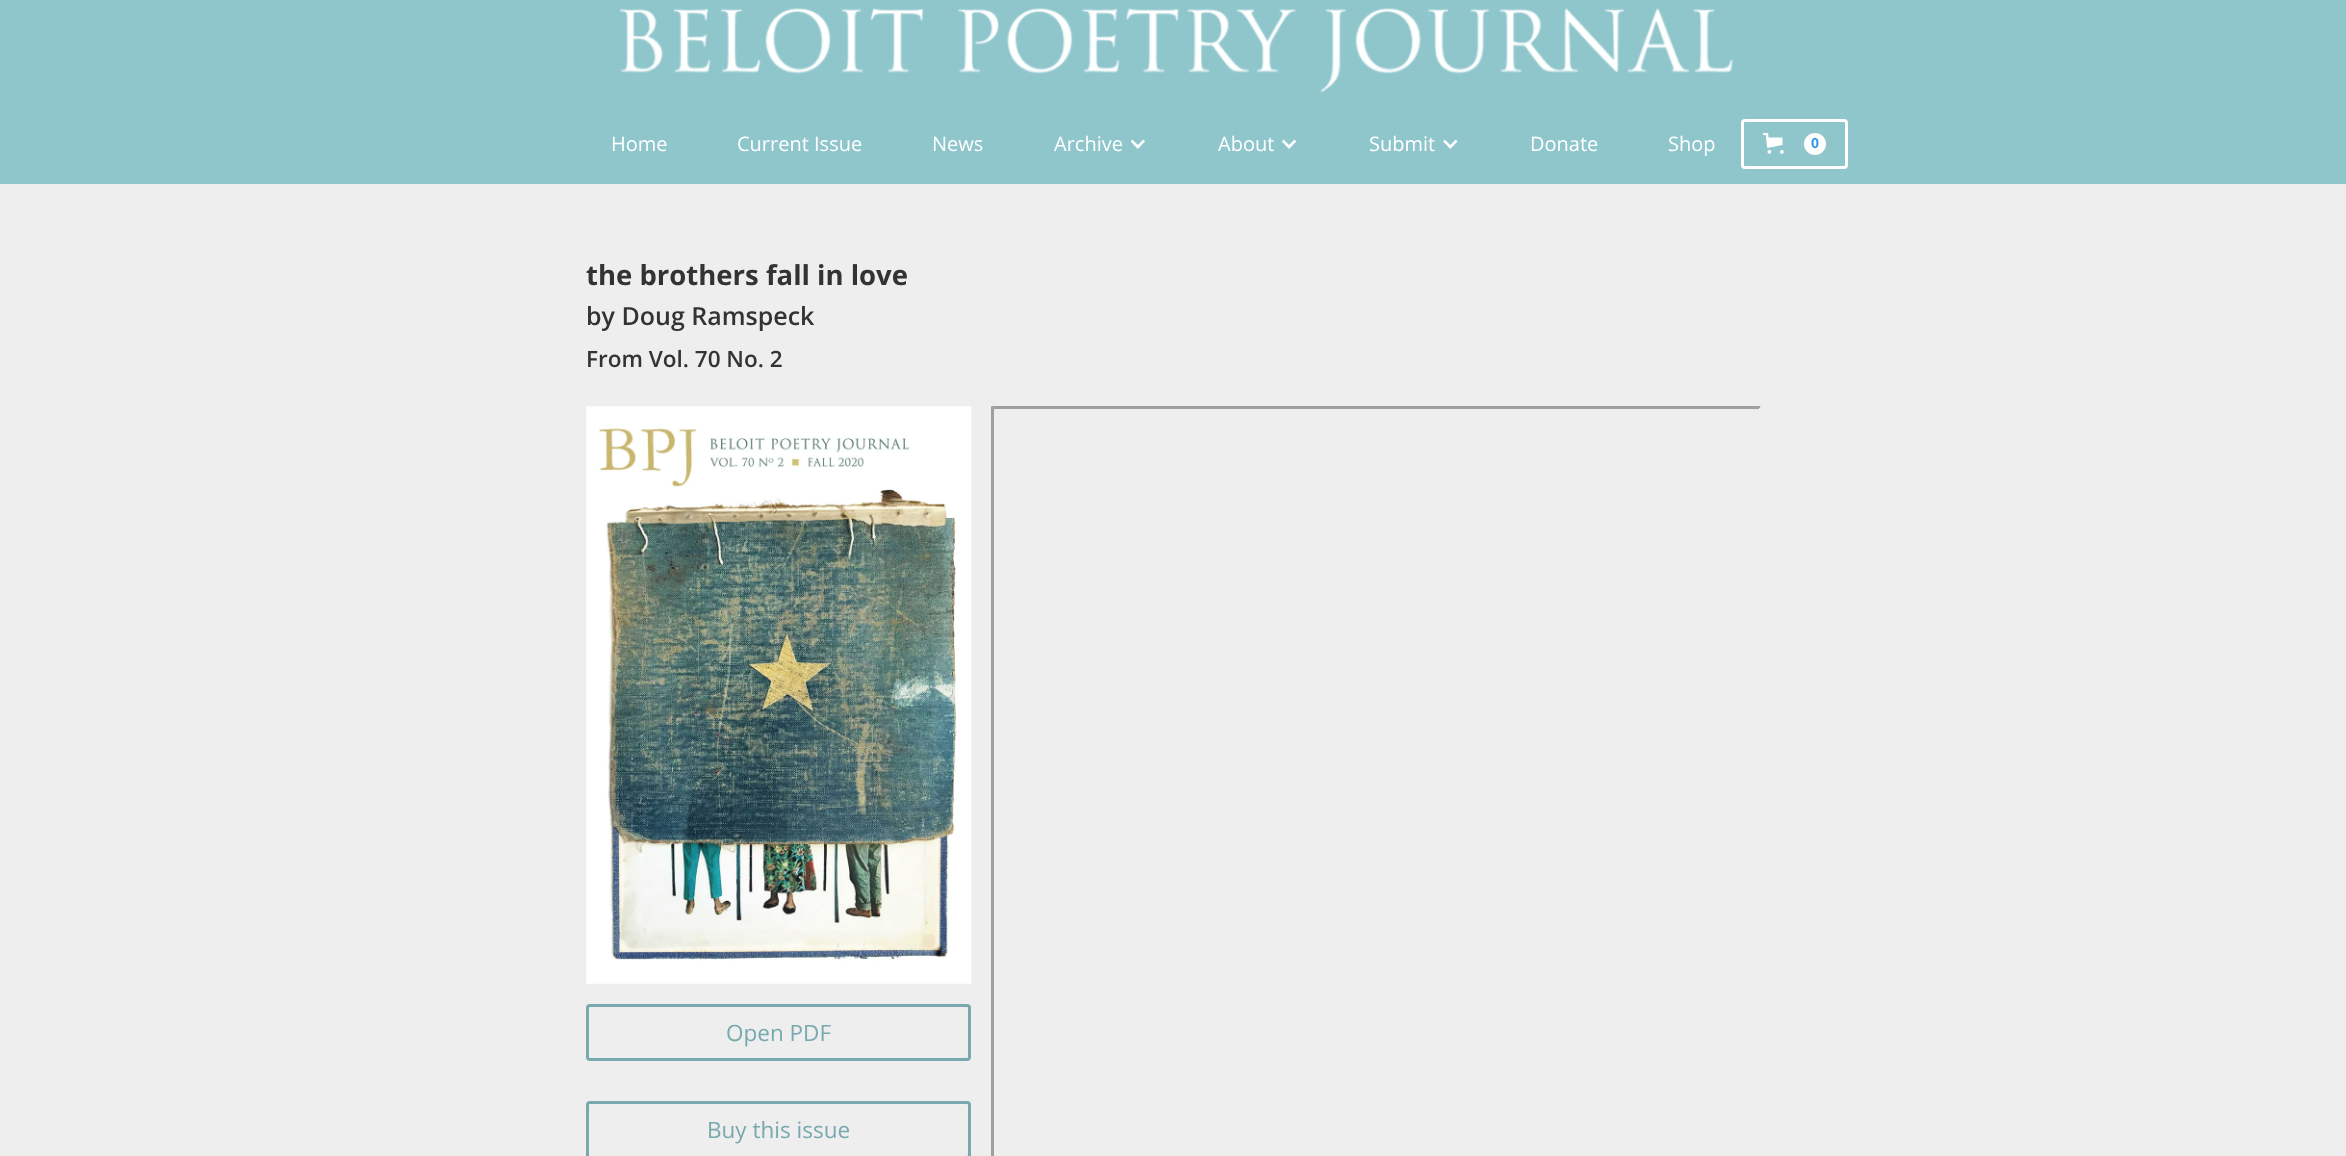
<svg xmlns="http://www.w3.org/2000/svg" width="2346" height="1156">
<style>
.a{font:20px Open Sans;fill:#fff}
.b{font:bold 14px Open Sans;fill:#3898ec}
.c{font:bold 27.5px Open Sans;fill:#333}
.d{font:600 25px Open Sans;fill:#333}
.e{font:600 22.5px Open Sans;fill:#333}
.f{font:22.5px Open Sans;fill:#77a9ae}
</style>
<rect width="100%" height="100%" fill="#eee"/>
<path fill="#8fc6cc" d="M0 0h2346v184H0z"/>
<image href="1.png" x="619" y="7" width="1114" height="86"/>
<image href="2.png" x="1130" y="139" width="15" height="10"/>
<image href="3.png" x="1282" y="139" width="15" height="10"/>
<image href="4.png" x="1443" y="139" width="15" height="10"/>
<rect fill="none" stroke="#fff" stroke-width="3" x="1742.5" y="120.5" width="104" height="47" rx="2.5"/>
<image href="5.png" x="1763" y="133" width="21" height="21"/>
<circle fill="#fff" cx="1815" cy="144" r="11"/>
<image href="6.png" x="586" y="406" width="386" height="578"/>
<path fill="#9f9f9f" d="M991 406h770l-2 3h-765z"/>
<path fill="#9f9f9f" d="M991 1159v-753l3 3v747z"/>
<path fill="#eee" d="M1761 406v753l-2-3v-747z"/>
<rect fill="none" stroke="#77a9ae" stroke-width="3" x="587.5" y="1005.5" width="382" height="54" rx="2.5"/>
<rect fill="none" stroke="#77a9ae" stroke-width="3" x="587.5" y="1102.5" width="382" height="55" rx="2.5"/>
<text class="a" x="611" y="151">Home</text>
<text class="a" x="737" y="151">Current Issue</text>
<text class="a" x="932" y="151">News</text>
<text class="a" x="1054" y="151">Archive</text>
<text class="a" x="1218" y="151">About</text>
<text class="a" x="1369" y="151">Submit</text>
<text class="a" x="1530" y="151">Donate</text>
<text class="a" x="1668" y="151">Shop</text>
<text class="b" x="1811" y="148">0</text>
<text class="c" x="586" y="285">the brothers fall in love</text>
<text class="d" x="586" y="325">by Doug Ramspeck</text>
<text class="e" x="586" y="367">From Vol. 70 No. 2</text>
<text class="f" x="726" y="1041">Open PDF</text>
<text class="f" x="707" y="1138">Buy this issue</text>
</svg>
